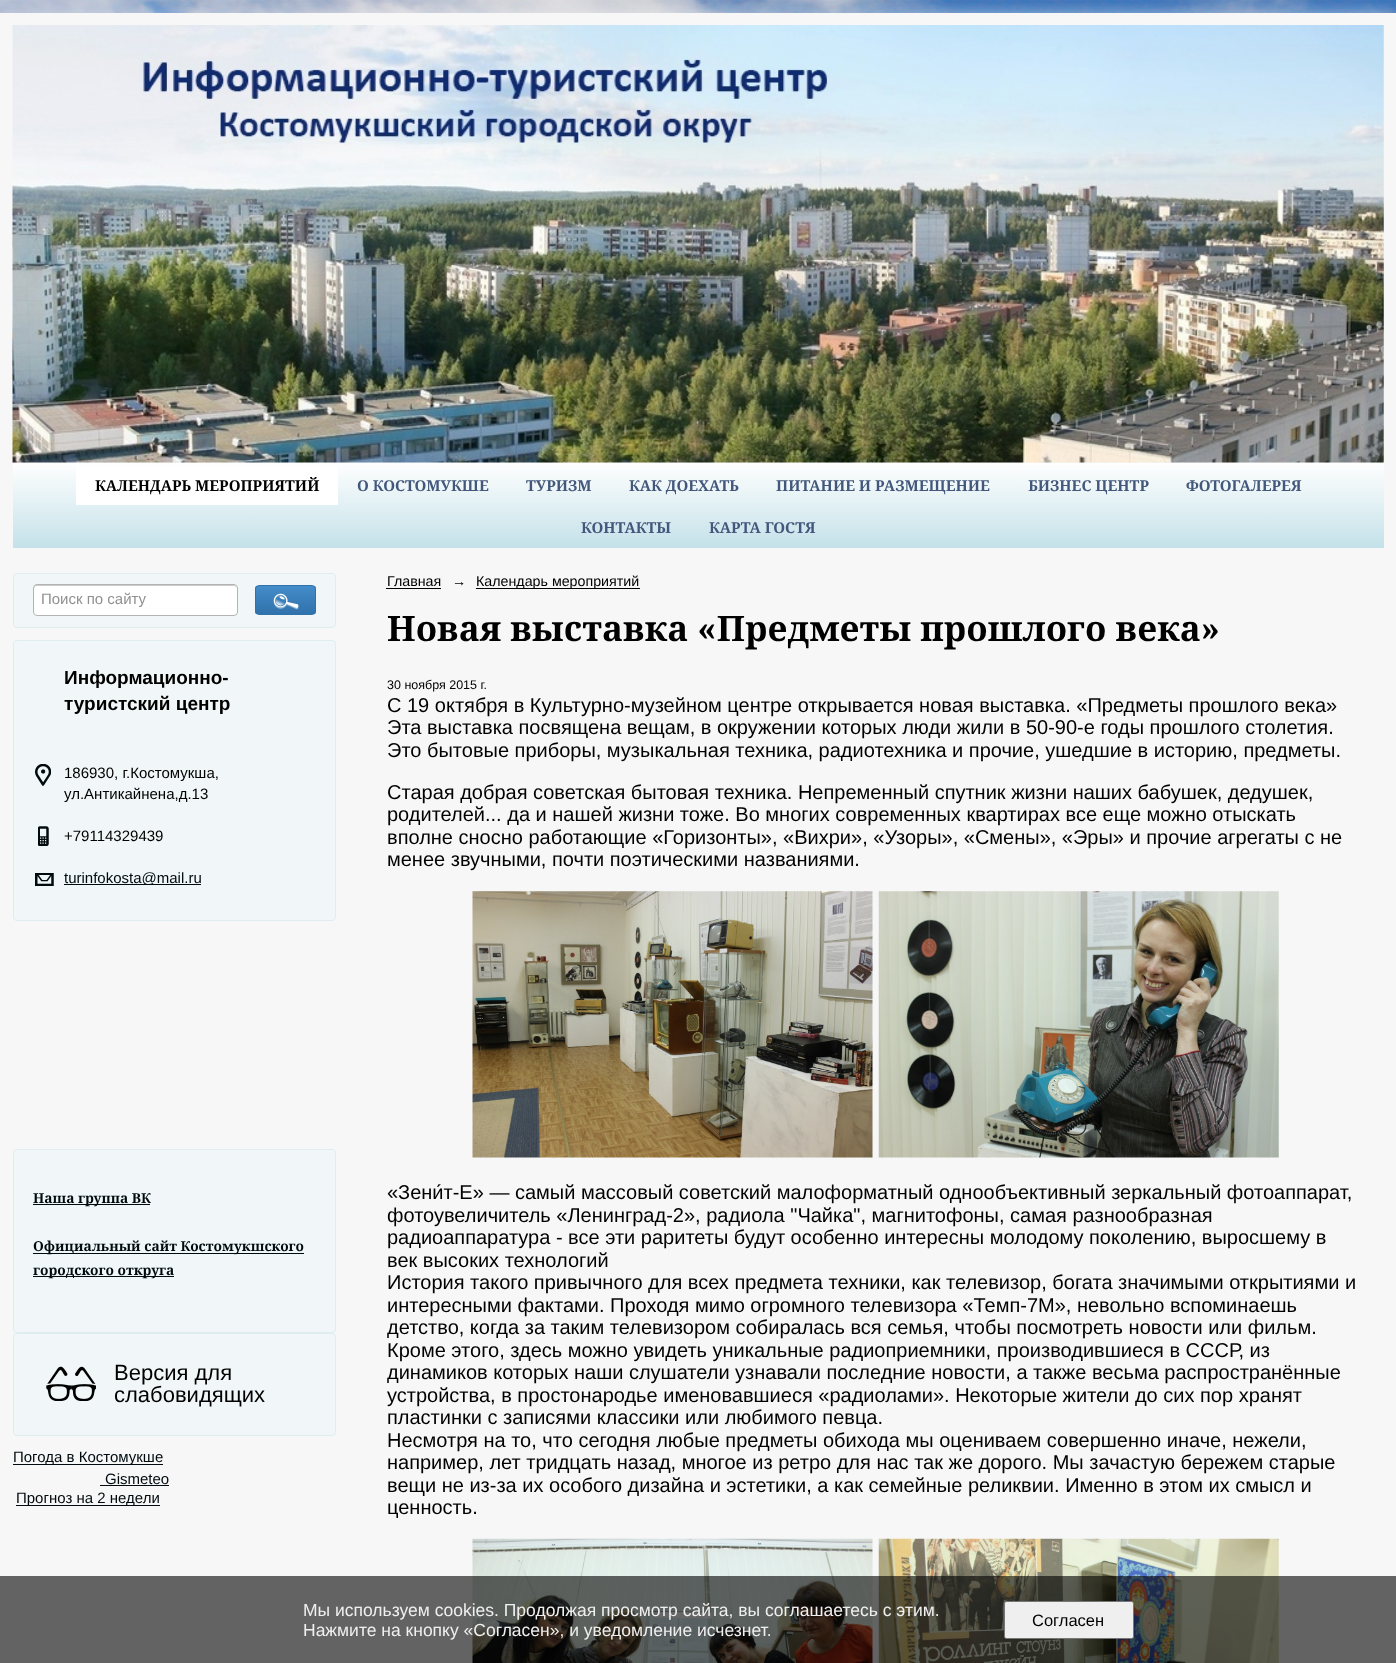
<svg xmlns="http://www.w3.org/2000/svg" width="1396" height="1663">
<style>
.a{font:bold 15px Noto Serif;fill:#000}
.b{font:bold 15px Noto Serif;fill:#42577b}
.c{font:15px Liberation Sans;fill:#909090}
.d{font:bold 19px Liberation Sans;fill:#000}
.e{font:15px Liberation Sans;fill:#000}
.f{font:15px Liberation Sans;fill:#010a0e}
.g{font:bold 13.75px Noto Serif;fill:#010a0e}
.h{font:22px Liberation Sans;fill:#000}
.i{font:14.25px Liberation Sans;fill:#000}
.j{font:italic 14.25px Liberation Sans;fill:#000}
.k{font:bold 35px Noto Serif;fill:#000}
.l{font:12.5px Liberation Sans;fill:#000}
.m{font:20px Liberation Sans;fill:#000}
.n{font:17.5px Liberation Sans;fill:#efefef}
.o{font:16.5px Liberation Sans;fill:#000}
</style>
<defs>
<linearGradient id="g1" gradientUnits="userSpaceOnUse" x1="698" y1="462" x2="698" y2="548"><stop offset="0" stop-color="#fff"/><stop offset="1" stop-color="#c4e1e9"/></linearGradient>
<clipPath id="clip1"><rect x="255" y="585" width="61" height="30" rx="4"/></clipPath>
<linearGradient id="g2" gradientUnits="userSpaceOnUse" x1="286" y1="586" x2="286" y2="614"><stop offset="0" stop-color="#448cca"/><stop offset="1" stop-color="#3072ab"/></linearGradient>
<clipPath id="clip2"><path d="M33 1160h283v139H33z"/></clipPath>
</defs>
<rect width="100%" height="100%" fill="#fff"/>
<image href="1.png" x="0" y="0" width="1396" height="13"/>
<path fill="#f7f7f799" filter="blur(9px)" d="M0 13h1396v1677H0z"/>
<path fill="#f7f7f7" d="M0 13h1396v1650H0z"/>
<image href="2.png" x="12" y="25" width="1372" height="438"/>
<path fill="url(#g1)" d="M13 463h1371v85H13z"/>
<path fill="#fff" d="M76 466h262v39H76z"/>
<rect fill="#f1f7f8" stroke="#e0edf0" x="13.5" y="573.5" width="322" height="54" rx="3.5"/>
<rect fill="#fff" x="33" y="584" width="205" height="32" rx="4"/>
<path fill="#ccc" d="M36 586h198c1 0 2 1 2 3v-1c0-2-1-3-2-3h-198c-1 0-2 1-2 3v1c0-2 1-3 2-3z"/>
<rect fill="none" stroke="#b3b3b3" x="33.5" y="584.5" width="204" height="31" rx="3.5"/>
<g clip-path="url(#clip1)">
<path fill="url(#g2)" d="M255 586h61v28H255z"/>
</g>
<rect fill="none" stroke="#3072ab" x="255.5" y="585.5" width="60" height="29" rx="3.5"/>
<image href="3.png" x="273" y="593" width="26" height="17"/>
<rect fill="#f1f7f8" stroke="#e0edf0" x="13.5" y="640.5" width="322" height="280" rx="3.5"/>
<image href="4.png" x="35" y="764" width="16" height="22"/>
<image href="5.png" x="38" y="826" width="11" height="20"/>
<image href="6.png" x="35" y="873" width="19" height="13"/>
<path fill="#010a0e" d="M64 884h137v1H64z"/>
<rect fill="#f1f7f8" stroke="#e0edf0" x="13.5" y="1149.5" width="322" height="183" rx="3.5"/>
<path fill="#010a0e" d="M33 1204h117v1H33z"/>
<path fill="#010a0e" d="M33 1253h271v1H33z"/>
<path fill="#010a0e" d="M33 1276h141v1H33z"/>
<rect fill="#f1f7f8" x="13" y="1333" width="323" height="103" rx="4"/>
<image href="7.png" x="46" y="1366" width="50" height="35"/>
<rect fill="none" stroke="#e0edf0" x="13.5" y="1333.5" width="322" height="102" rx="3.5"/>
<path fill="#010a0e" d="M13 1464h150v1H13z"/>
<path fill="#010a0e" d="M100 1485h69v1H100z"/>
<path fill="#010a0e" d="M16 1505h144v1H16z"/>
<path fill="#000" d="M386 588h55v1H386z"/>
<path fill="#000" d="M476 588h164v1H476z"/>
<image href="8.png" x="472" y="891" width="401" height="267"/>
<image href="9.png" x="878" y="891" width="401" height="267"/>
<image href="10.png" x="472" y="1538" width="401" height="125"/>
<image href="11.png" x="878" y="1538" width="401" height="125"/>
<path fill="#00000099" d="M0 1576h1396v87H0z"/>
<rect fill="#efefef" stroke="#767676" x="1004.5" y="1601.5" width="129" height="37" rx="2"/>
<text class="a" x="95" y="491">КАЛЕНДАРЬ МЕРОПРИЯТИЙ</text>
<text class="b" x="357" y="491">О КОСТОМУКШЕ</text>
<text class="b" x="526" y="491">ТУРИЗМ</text>
<text class="b" x="629" y="491">КАК ДОЕХАТЬ</text>
<text class="b" x="776" y="491">ПИТАНИЕ И РАЗМЕЩЕНИЕ</text>
<text class="b" x="1028" y="491">БИЗНЕС ЦЕНТР</text>
<text class="b" x="1186" y="491">ФОТОГАЛЕРЕЯ</text>
<text class="b" x="581" y="533">КОНТАКТЫ</text>
<text class="b" x="709" y="533">КАРТА ГОСТЯ</text>
<text class="c" x="41" y="604">Поиск по сайту</text>
<text class="d" x="64" y="684">Информационно-</text>
<text class="d" x="64" y="710">туристский центр</text>
<text class="e" x="64" y="778">186930, г.Костомукша,</text>
<text class="e" x="64" y="799">ул.Антикайнена,д.13</text>
<text class="e" x="64" y="841">+79114329439</text>
<text class="f" x="64" y="883">turinfokosta@mail.ru</text>
<text class="g" x="33" y="1203">Наша группа ВК</text>
<text class="g" x="33" y="1251">Официальный сайт Костомукшского</text>
<g clip-path="url(#clip2)">
<text class="g" x="33" y="1275">городского откруга</text>
</g>
<text class="h" x="114" y="1380">Версия для</text>
<text class="h" x="114" y="1402">слабовидящих</text>
<text class="f" x="13" y="1462">Погода в Костомукше</text>
<text class="f" x="105" y="1484">Gismeteo</text>
<text class="f" x="16" y="1503">Прогноз на 2 недели</text>
<text class="i" x="387" y="586">Главная</text>
<text class="j" x="452" y="586">→</text>
<text class="i" x="476" y="586">Календарь мероприятий</text>
<text class="k" x="387" y="641">Новая выставка «Предметы прошлого века»</text>
<text class="l" x="387" y="689">30 ноября 2015 г.</text>
<text class="m" x="387" y="712">С 19 октября в Культурно-музейном центре открывается новая выставка. «Предметы прошлого века»</text>
<text class="m" x="387" y="734">Эта выставка посвящена вещам, в окружении которых люди жили в 50-90-е годы прошлого столетия.</text>
<text class="m" x="387" y="757">Это бытовые приборы, музыкальная техника, радиотехника и прочие, ушедшие в историю, предметы.</text>
<text class="m" x="387" y="799">Старая добрая советская бытовая техника. Непременный спутник жизни наших бабушек, дедушек,</text>
<text class="m" x="387" y="821">родителей... да и нашей жизни тоже. Во многих современных квартирах все еще можно отыскать</text>
<text class="m" x="387" y="844">вполне сносно работающие «Горизонты», «Вихри», «Узоры», «Смены», «Эры» и прочие агрегаты с не</text>
<text class="m" x="387" y="866">менее звучными, почти поэтическими названиями.</text>
<text class="m" x="387" y="1199">«Зени́т-Е» — самый массовый советский малоформатный однообъективный зеркальный фотоаппарат,</text>
<text class="m" x="387" y="1222">фотоувеличитель «Ленинград-2», радиола "Чайка", магнитофоны, самая разнообразная</text>
<text class="m" x="387" y="1244">радиоаппаратура - все эти раритеты будут особенно интересны молодому поколению, выросшему в</text>
<text class="m" x="387" y="1267">век высоких технологий</text>
<text class="m" x="387" y="1289">История такого привычного для всех предмета техники, как телевизор, богата значимыми открытиями и</text>
<text class="m" x="387" y="1312">интересными фактами. Проходя мимо огромного телевизора «Темп-7М», невольно вспоминаешь</text>
<text class="m" x="387" y="1334">детство, когда за таким телевизором собиралась вся семья, чтобы посмотреть новости или фильм.</text>
<text class="m" x="387" y="1357">Кроме этого, здесь можно увидеть уникальные радиоприемники, производившиеся в СССР, из</text>
<text class="m" x="387" y="1379">динамиков которых наши слушатели узнавали последние новости, а также весьма распространённые</text>
<text class="m" x="387" y="1402">устройства, в простонародье именовавшиеся «радиолами». Некоторые жители до сих пор хранят</text>
<text class="m" x="387" y="1424">пластинки с записями классики или любимого певца.</text>
<text class="m" x="387" y="1447">Несмотря на то, что сегодня любые предметы обихода мы оцениваем совершенно иначе, нежели,</text>
<text class="m" x="387" y="1469">например, лет тридцать назад, многое из ретро для нас так же дорого. Мы зачастую бережем старые</text>
<text class="m" x="387" y="1492">вещи не из-за их особого дизайна и эстетики, а как семейные реликвии. Именно в этом их смысл и</text>
<text class="m" x="387" y="1514">ценность.</text>
<text class="n" x="303" y="1616">Мы используем cookies. Продолжая просмотр сайта, вы соглашаетесь с этим.</text>
<text class="n" x="303" y="1636">Нажмите на кнопку «Согласен», и уведомление исчезнет.</text>
<text class="o" x="1032" y="1626">Согласен</text>
</svg>
